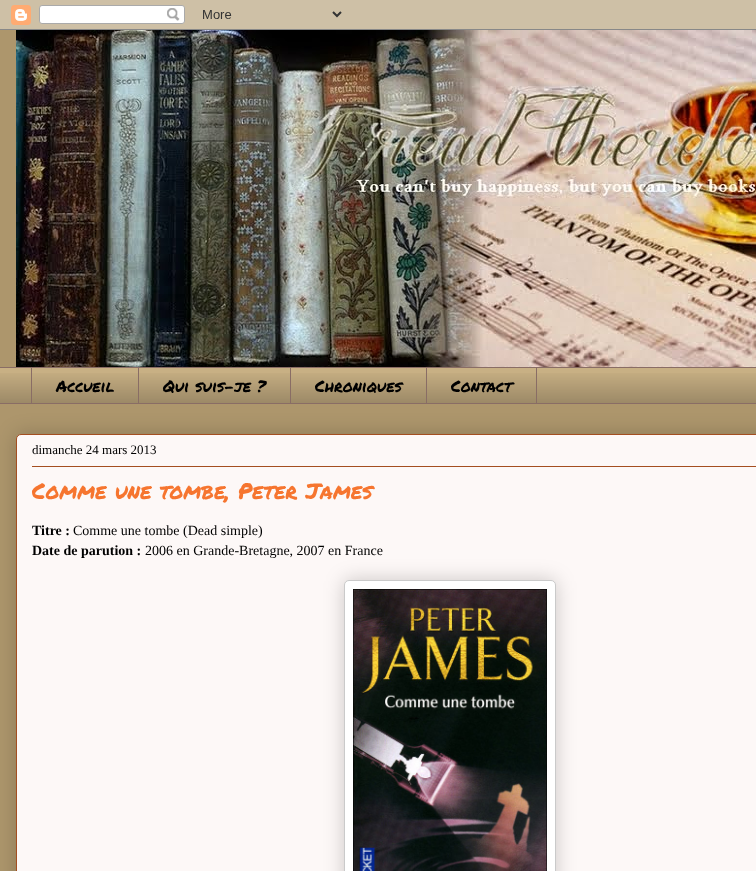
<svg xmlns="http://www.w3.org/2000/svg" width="756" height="871">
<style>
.a{font:16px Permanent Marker;fill:#000}
.b{font:13px Liberation Serif;fill:#000}
.c{font:22px Permanent Marker;fill:#f6752f}
.d{font:bold 14px Liberation Serif;fill:#000}
.e{font:14px Liberation Serif;fill:#000}
</style>
<rect width="100%" height="100%" fill="#ad966c"/>
<image href="1.png" x="0" y="0" width="756" height="30"/>
<image href="2.png" x="16" y="30" width="740" height="337"/>
<path fill="#c8b084" d="M0 368h756v35H0z"/>
<image href="3.png" x="0" y="373" width="756" height="30"/>
<path fill="#896d65" d="M0 367h756v1H0z"/>
<path fill="#896d65" d="M31 367h1v37H31z"/>
<path fill="#896d65" d="M138 367h1v37H138z"/>
<path fill="#896d65" d="M290 367h1v37H290z"/>
<path fill="none" stroke="#896d65" d="M426.5 367.5h110v36H426.5z"/>
<path fill="#896d65" d="M0 403h756v1H0z"/>
<rect fill="#00000033" filter="blur(10px)" x="16" y="434" width="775" height="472" rx="5"/>
<rect fill="#fdf8f7" stroke="#a44e20" x="16.5" y="434.5" width="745" height="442" rx="4.5"/>
<path fill="#a44e20" d="M32 466h724v1H32z"/>
<rect fill="#00000033" filter="blur(10px)" x="344" y="580" width="212" height="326" rx="5"/>
<rect fill="#fff" stroke="#cacaca" x="344.5" y="580.5" width="211" height="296" rx="4.5"/>
<image href="4.png" x="353" y="589" width="194" height="282"/>
<text class="a" x="56" y="392">Accueil</text>
<text class="a" x="163" y="392">Qui suis-je ?</text>
<text class="a" x="315" y="392">Chroniques</text>
<text class="a" x="451" y="392">Contact</text>
<text class="b" x="32" y="454">dimanche 24 mars 2013</text>
<text class="c" x="32" y="499">Comme une tombe, Peter James</text>
<text class="d" x="32" y="535">Titre :</text>
<text class="e" x="73" y="535">Comme une tombe (Dead simple)</text>
<text class="d" x="32" y="555">Date de parution :</text>
<text class="e" x="145" y="555">2006 en Grande-Bretagne, 2007 en France</text>
</svg>
